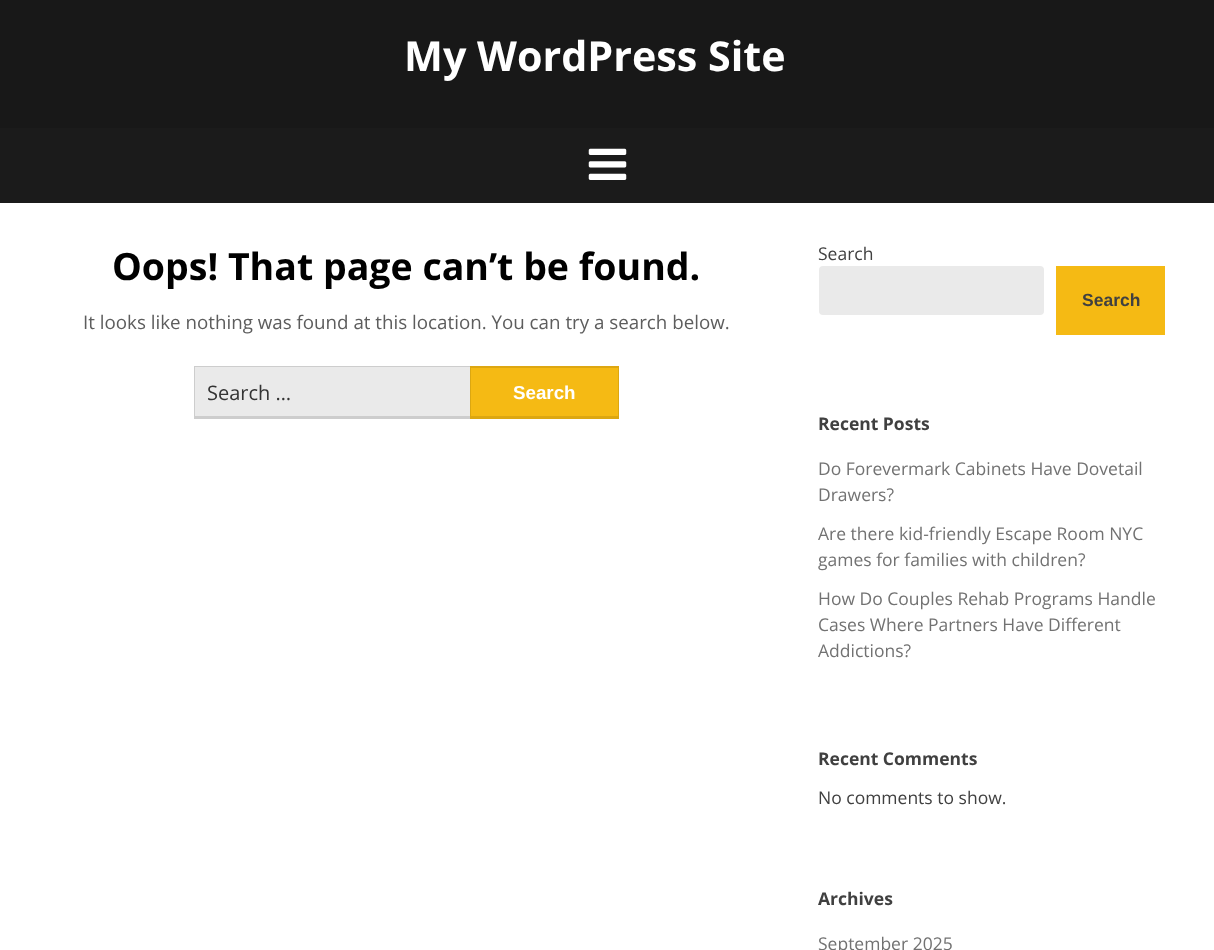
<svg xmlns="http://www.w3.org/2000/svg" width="1214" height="950">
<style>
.a{font:bold 41.25px Open Sans;fill:#fff}
.b{font:bold 37.5px Open Sans;fill:#000}
.c{font:18.75px Open Sans;fill:#5d5d5d}
.d{font:20px Open Sans;fill:#333}
.e{font:bold 18.75px Liberation Sans;fill:#fff}
.f{font:17.5px Open Sans;fill:#404040}
.g{font:bold 17.5px Liberation Sans;fill:#404040}
.h{font:bold 17.5px Open Sans;fill:#404040}
.i{font:17.5px Open Sans;fill:#727272}
</style>
<rect width="100%" height="100%" fill="#fff"/>
<path fill="#181818" d="M0 0h1214v128H0z"/>
<path fill="#1b1b1b" d="M0 128h1214v75H0z"/>
<image href="1.png" x="588" y="148" width="39" height="32"/>
<path fill="#eaeaea" d="M195 367h275v49H195z"/>
<path fill="#cdcdcd" d="M194 366h276v1H194z"/>
<path fill="#cdcdcd" d="M194 416h276v3H194z"/>
<path fill="#cdcdcd" d="M194 366h1v53H194z"/>
<path fill="#f5ba14" d="M470 366h149v53H470z"/>
<path fill="#dda712" d="M470 366h149l-1 2h-147z"/>
<path fill="#0000001a" d="M619 366v53l-1-3v-48z"/>
<path fill="#0000001a" d="M619 419h-149l1-3h147z"/>
<path fill="#0000001a" d="M470 419v-53l1 2v48z"/>
<rect fill="#eaeaea" x="819" y="266" width="225" height="49" rx="4"/>
<path fill="#f5ba14" d="M1056 266h109v69H1056z"/>
<text class="a" x="404" y="71">My WordPress Site</text>
<text class="b" x="112" y="280">Oops! That page can’t be found.</text>
<text class="c" x="83" y="329">It looks like nothing was found at this location. You can try a search below.</text>
<text class="d" x="207" y="400">Search …</text>
<text class="e" x="513" y="399">Search</text>
<text class="f" x="818" y="260">Search</text>
<text class="g" x="1082" y="306">Search</text>
<text class="h" x="818" y="430">Recent Posts</text>
<text class="i" x="818" y="475">Do Forevermark Cabinets Have Dovetail</text>
<text class="i" x="818" y="501">Drawers?</text>
<text class="i" x="818" y="540">Are there kid-friendly Escape Room NYC</text>
<text class="i" x="818" y="566">games for families with children?</text>
<text class="i" x="818" y="605">How Do Couples Rehab Programs Handle</text>
<text class="i" x="818" y="631">Cases Where Partners Have Different</text>
<text class="i" x="818" y="657">Addictions?</text>
<text class="h" x="818" y="765">Recent Comments</text>
<text class="f" x="818" y="804">No comments to show.</text>
<text class="h" x="818" y="905">Archives</text>
<text class="i" x="818" y="950">September 2025</text>
</svg>
